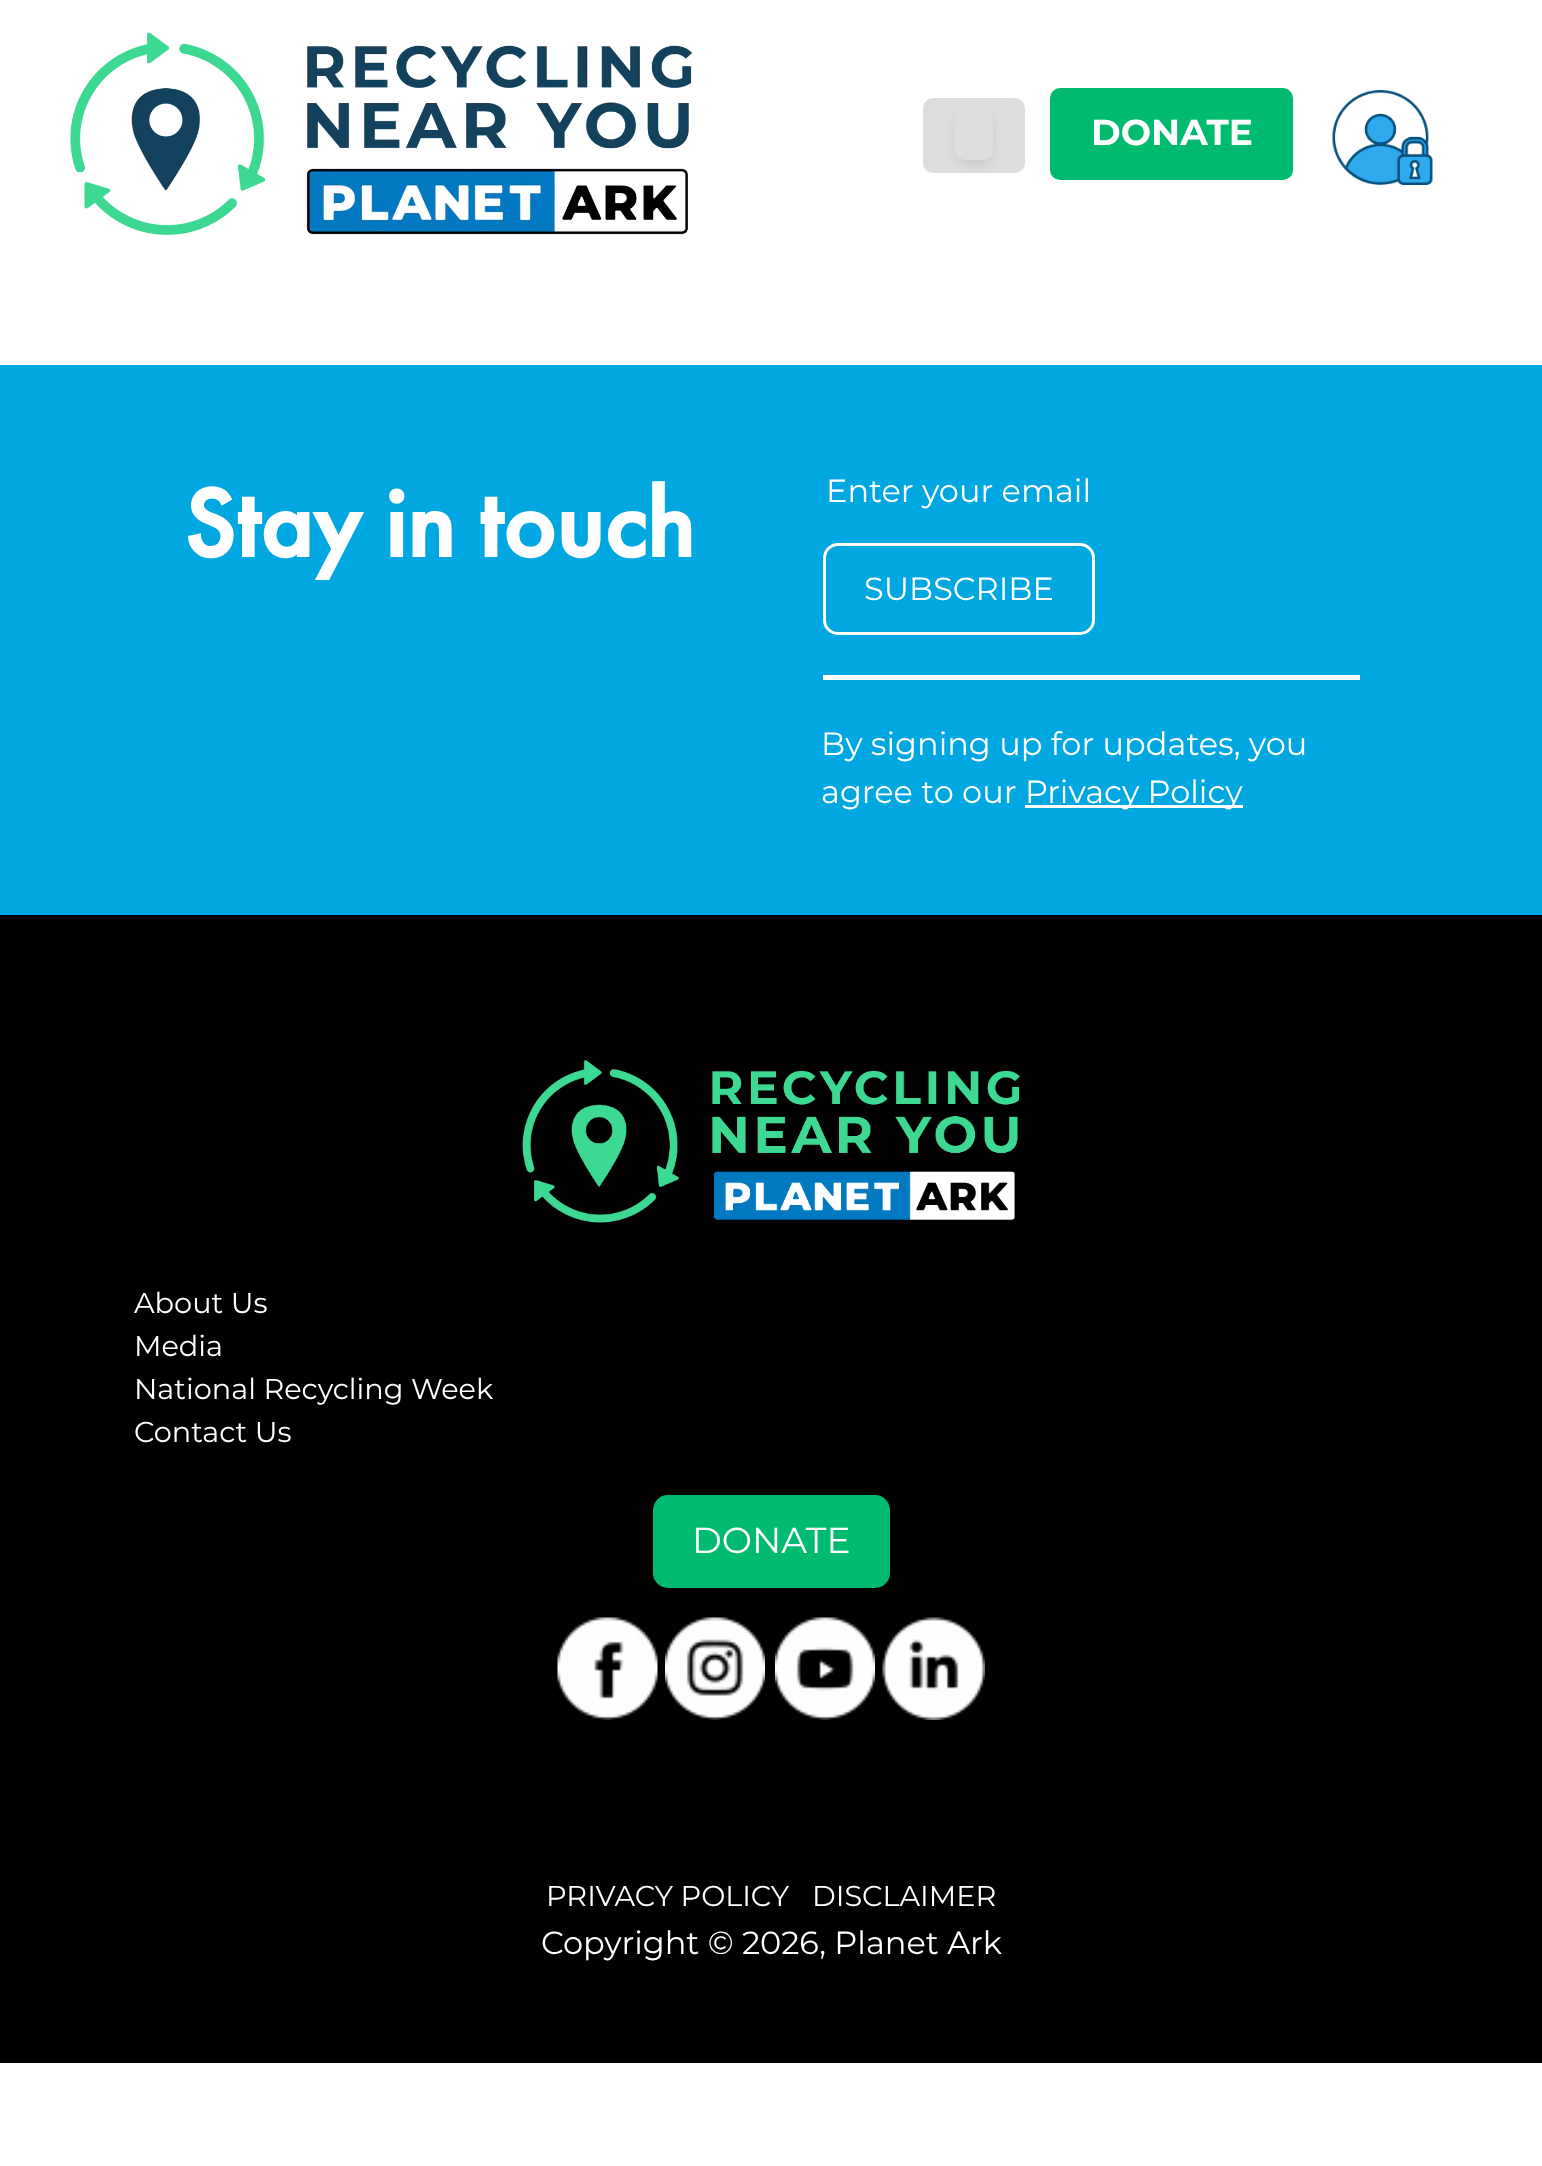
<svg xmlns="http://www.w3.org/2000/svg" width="1542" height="2166">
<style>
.a{font:bold 36px Montserrat;fill:#fff}
.b{font:bold 100px Futura PT;fill:#fff}
.c{font:32px Montserrat;fill:#fff}
.d{font:28.75px Montserrat;fill:#fff}
.e{font:36px Montserrat;fill:#fff}
</style>
<rect width="100%" height="100%" fill="#fff"/>
<image href="1.png" x="70" y="32" width="622" height="203"/>
<rect fill="#ddd" x="923" y="98" width="102" height="75" rx="10"/>
<rect fill="#00000012" filter="blur(5px)" x="955" y="115" width="38" height="50" rx="10"/>
<rect fill="#ddd" x="955" y="110" width="38" height="50" rx="10"/>
<rect fill="#00bb6f" x="1050" y="88" width="243" height="92" rx="10"/>
<image href="2.png" x="1332" y="90" width="101" height="95"/>
<path fill="#01a7e1" d="M0 365h1542v550H0z"/>
<rect fill="none" stroke="#fff" stroke-width="3" x="824.5" y="544.5" width="269" height="89" rx="13.5"/>
<path fill="#fff" d="M823 675h537v5H823z"/>
<path fill="#fff" d="M1025 805h218v3H1025z"/>
<path fill="#000" d="M0 915h1542v1148H0z"/>
<image href="3.png" x="522" y="1060" width="498" height="163"/>
<rect fill="#00bb6f" x="653" y="1495" width="237" height="93" rx="15"/>
<image href="4.png" x="557" y="1617" width="101" height="103"/>
<image href="5.png" x="665" y="1617" width="100" height="103"/>
<image href="6.png" x="775" y="1617" width="100" height="103"/>
<image href="7.png" x="882" y="1617" width="103" height="103"/>
<text class="a" x="1091" y="145">DONATE</text>
<text class="b" x="184" y="557">Stay in touch</text>
<text class="c" x="826" y="502">Enter your email</text>
<text class="c" x="864" y="600">SUBSCRIBE</text>
<text class="c" x="821" y="755">By signing up for updates, you</text>
<text class="c" x="821" y="803">agree to our</text>
<text class="c" x="1025" y="803">Privacy Policy</text>
<text class="d" x="134" y="1313">About Us</text>
<text class="d" x="134" y="1356">Media</text>
<text class="d" x="134" y="1399">National Recycling Week</text>
<text class="d" x="134" y="1442">Contact Us</text>
<text class="e" x="692" y="1553">DONATE</text>
<text class="d" x="546" y="1906">PRIVACY POLICY</text>
<text class="d" x="812" y="1906">DISCLAIMER</text>
<text class="c" x="541" y="1954">Copyright © 2026, Planet Ark</text>
</svg>
